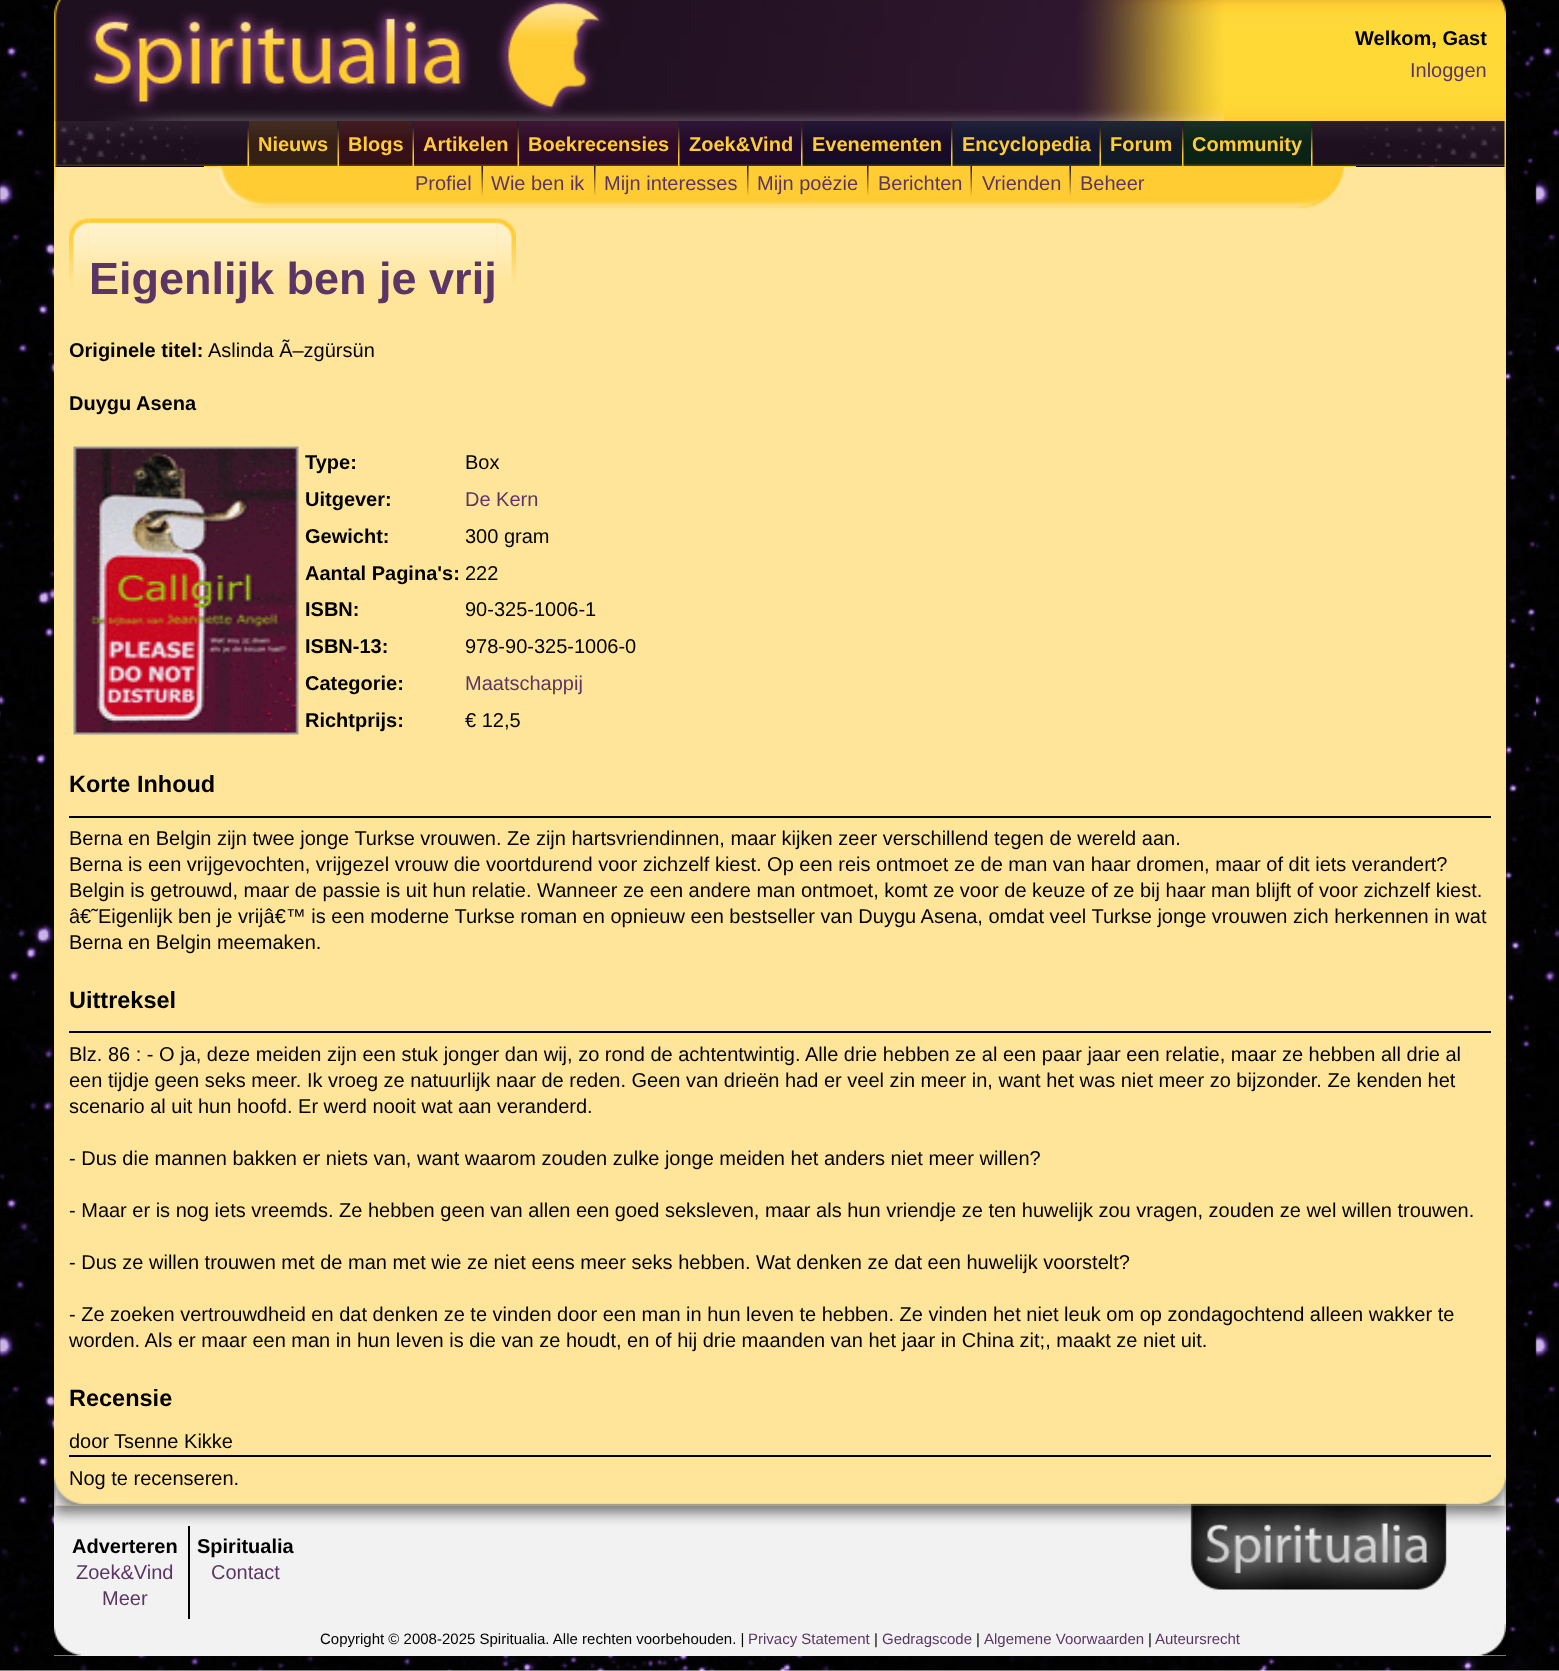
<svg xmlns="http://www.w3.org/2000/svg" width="1559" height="1671">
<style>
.a{font:bold 20px Liberation Sans;fill:#000}
.b{font:20px Liberation Sans;fill:#5b3664}
.c{font:bold 20px Liberation Sans;fill:#fc3}
.d{font:bold 45px Liberation Sans;fill:#5b3664}
.e{font:20px Liberation Sans;fill:#000}
.f{font:bold 23.5px Liberation Sans;fill:#000}
.g{font:15px Liberation Sans;fill:#000}
.h{font:15px Liberation Sans;fill:#5b3664}
</style>
<rect width="100%" height="100%" fill="#fff"/>
<image href="1.png" x="0" y="0" width="1559" height="1671"/>
<path fill="#fc3" d="M1224 117h282v4H1224z"/>
<image href="2.png" x="1224" y="0" width="282" height="117"/>
<image href="3.png" x="54" y="0" width="1170" height="121"/>
<image href="4.png" x="1500" y="0" width="6" height="16"/>
<image href="5.png" x="54" y="121" width="150" height="45"/>
<path fill="#fc3" d="M204 166h1152v1H204z"/>
<image href="6.png" x="204" y="121" width="1152" height="45"/>
<image href="7.png" x="247" y="127" width="2" height="39"/>
<image href="8.png" x="249" y="121" width="89" height="45"/>
<image href="9.png" x="337" y="121" width="2" height="45"/>
<image href="10.png" x="339" y="121" width="74" height="45"/>
<image href="11.png" x="412" y="121" width="2" height="45"/>
<image href="12.png" x="414" y="121" width="104" height="45"/>
<image href="13.png" x="517" y="121" width="2" height="45"/>
<image href="14.png" x="519" y="121" width="159" height="45"/>
<image href="16.png" x="679" y="121" width="122" height="45"/>
<image href="15.png" x="678" y="121" width="2" height="45"/>
<image href="18.png" x="802" y="121" width="149" height="45"/>
<image href="17.png" x="801" y="121" width="2" height="45"/>
<image href="20.png" x="952" y="121" width="148" height="45"/>
<image href="19.png" x="951" y="121" width="2" height="45"/>
<image href="21.png" x="1099" y="121" width="2" height="45"/>
<image href="22.png" x="1101" y="121" width="81" height="45"/>
<image href="24.png" x="1183" y="121" width="128" height="45"/>
<image href="23.png" x="1182" y="121" width="2" height="45"/>
<image href="25.png" x="1311" y="127" width="2" height="39"/>
<image href="26.png" x="1356" y="121" width="150" height="45"/>
<path fill="#ffe599" d="M54 167h1452v1339H54z"/>
<image href="27.png" x="54" y="166" width="2" height="29"/>
<image href="28.png" x="217" y="166" width="1127" height="45"/>
<image href="29.png" x="481" y="166" width="2" height="30"/>
<image href="30.png" x="594" y="166" width="2" height="30"/>
<image href="30.png" x="747" y="166" width="2" height="30"/>
<image href="30.png" x="867" y="166" width="2" height="30"/>
<image href="29.png" x="970" y="166" width="2" height="30"/>
<image href="29.png" x="1069" y="166" width="2" height="30"/>
<image href="31.png" x="1504" y="166" width="2" height="29"/>
<image href="32.png" x="54" y="1475" width="1452" height="31"/>
<image href="33.png" x="69" y="218" width="20" height="69"/>
<image href="34.png" x="88" y="218" width="409" height="62"/>
<image href="35.png" x="496" y="218" width="20" height="69"/>
<image href="36.png" x="73" y="446" width="226" height="289"/>
<path fill="#000" d="M69 816h1422v2H69z"/>
<path fill="#000" d="M69 1031h1422v2H69z"/>
<path fill="#000" d="M69 1455h1422v2H69z"/>
<path fill="#f2f2f2" d="M54 1655h1452v1H54z"/>
<image href="37.png" x="54" y="1505" width="1452" height="151"/>
<path fill="#000" d="M188 1526h2v93H188z"/>
<text class="a" x="1355" y="45">Welkom, Gast</text>
<text class="b" x="1410" y="77">Inloggen</text>
<text class="c" x="258" y="151">Nieuws</text>
<text class="c" x="348" y="151">Blogs</text>
<text class="c" x="423" y="151">Artikelen</text>
<text class="c" x="528" y="151">Boekrecensies</text>
<text class="c" x="689" y="151">Zoek&amp;Vind</text>
<text class="c" x="812" y="151">Evenementen</text>
<text class="c" x="962" y="151">Encyclopedia</text>
<text class="c" x="1110" y="151">Forum</text>
<text class="c" x="1192" y="151">Community</text>
<text class="b" x="415" y="190">Profiel</text>
<text class="b" x="491" y="190">Wie ben ik</text>
<text class="b" x="604" y="190">Mijn interesses</text>
<text class="b" x="757" y="190">Mijn poëzie</text>
<text class="b" x="878" y="190">Berichten</text>
<text class="b" x="982" y="190">Vrienden</text>
<text class="b" x="1080" y="190">Beheer</text>
<text class="d" x="89" y="294">Eigenlijk ben je vrij</text>
<text class="a" x="69" y="357">Originele titel:</text>
<text class="e" x="208" y="357">Aslinda Ã–zgürsün</text>
<text class="a" x="69" y="410">Duygu Asena</text>
<text class="a" x="305" y="469">Type:</text>
<text class="e" x="465" y="469">Box</text>
<text class="a" x="305" y="506">Uitgever:</text>
<text class="b" x="465" y="506">De Kern</text>
<text class="a" x="305" y="543">Gewicht:</text>
<text class="e" x="465" y="543">300 gram</text>
<text class="a" x="305" y="580">Aantal Pagina's:</text>
<text class="e" x="465" y="580">222</text>
<text class="a" x="305" y="616">ISBN:</text>
<text class="e" x="465" y="616">90-325-1006-1</text>
<text class="a" x="305" y="653">ISBN-13:</text>
<text class="e" x="465" y="653">978-90-325-1006-0</text>
<text class="a" x="305" y="690">Categorie:</text>
<text class="b" x="465" y="690">Maatschappij</text>
<text class="a" x="305" y="727">Richtprijs:</text>
<text class="e" x="465" y="727">€ 12,5</text>
<text class="f" x="69" y="792">Korte Inhoud</text>
<text class="e" x="69" y="845">Berna en Belgin zijn twee jonge Turkse vrouwen. Ze zijn hartsvriendinnen, maar kijken zeer verschillend tegen de wereld aan.</text>
<text class="e" x="69" y="871">Berna is een vrijgevochten, vrijgezel vrouw die voortdurend voor zichzelf kiest. Op een reis ontmoet ze de man van haar dromen, maar of dit iets verandert?</text>
<text class="e" x="69" y="897">Belgin is getrouwd, maar de passie is uit hun relatie. Wanneer ze een andere man ontmoet, komt ze voor de keuze of ze bij haar man blijft of voor zichzelf kiest.</text>
<text class="e" x="69" y="923">â€˜Eigenlijk ben je vrijâ€™ is een moderne Turkse roman en opnieuw een bestseller van Duygu Asena, omdat veel Turkse jonge vrouwen zich herkennen in wat</text>
<text class="e" x="69" y="949">Berna en Belgin meemaken.</text>
<text class="f" x="69" y="1008">Uittreksel</text>
<text class="e" x="69" y="1061">Blz. 86 : - O ja, deze meiden zijn een stuk jonger dan wij, zo rond de achtentwintig. Alle drie hebben ze al een paar jaar een relatie, maar ze hebben all drie al</text>
<text class="e" x="69" y="1087">een tijdje geen seks meer. Ik vroeg ze natuurlijk naar de reden. Geen van drieën had er veel zin meer in, want het was niet meer zo bijzonder. Ze kenden het</text>
<text class="e" x="69" y="1113">scenario al uit hun hoofd. Er werd nooit wat aan veranderd.</text>
<text class="e" x="69" y="1165">- Dus die mannen bakken er niets van, want waarom zouden zulke jonge meiden het anders niet meer willen?</text>
<text class="e" x="69" y="1217">- Maar er is nog iets vreemds. Ze hebben geen van allen een goed seksleven, maar als hun vriendje ze ten huwelijk zou vragen, zouden ze wel willen trouwen.</text>
<text class="e" x="69" y="1269">- Dus ze willen trouwen met de man met wie ze niet eens meer seks hebben. Wat denken ze dat een huwelijk voorstelt?</text>
<text class="e" x="69" y="1321">- Ze zoeken vertrouwdheid en dat denken ze te vinden door een man in hun leven te hebben. Ze vinden het niet leuk om op zondagochtend alleen wakker te</text>
<text class="e" x="69" y="1347">worden. Als er maar een man in hun leven is die van ze houdt, en of hij drie maanden van het jaar in China zit;, maakt ze niet uit.</text>
<text class="f" x="69" y="1406">Recensie</text>
<text class="e" x="69" y="1448">door</text>
<text class="e" x="114" y="1448">Tsenne Kikke</text>
<text class="e" x="69" y="1485">Nog te recenseren.</text>
<text class="a" x="72" y="1553">Adverteren</text>
<text class="b" x="76" y="1579">Zoek&amp;Vind</text>
<text class="b" x="102" y="1605">Meer</text>
<text class="a" x="197" y="1553">Spiritualia</text>
<text class="b" x="211" y="1579">Contact</text>
<text class="g" x="320" y="1644">Copyright © 2008-2025 Spiritualia. Alle rechten voorbehouden. |</text>
<text class="h" x="748" y="1644">Privacy Statement</text>
<text class="g" x="874" y="1644">|</text>
<text class="h" x="882" y="1644">Gedragscode</text>
<text class="g" x="976" y="1644">|</text>
<text class="h" x="984" y="1644">Algemene Voorwaarden</text>
<text class="g" x="1148" y="1644">|</text>
<text class="h" x="1155" y="1644">Auteursrecht</text>
</svg>
